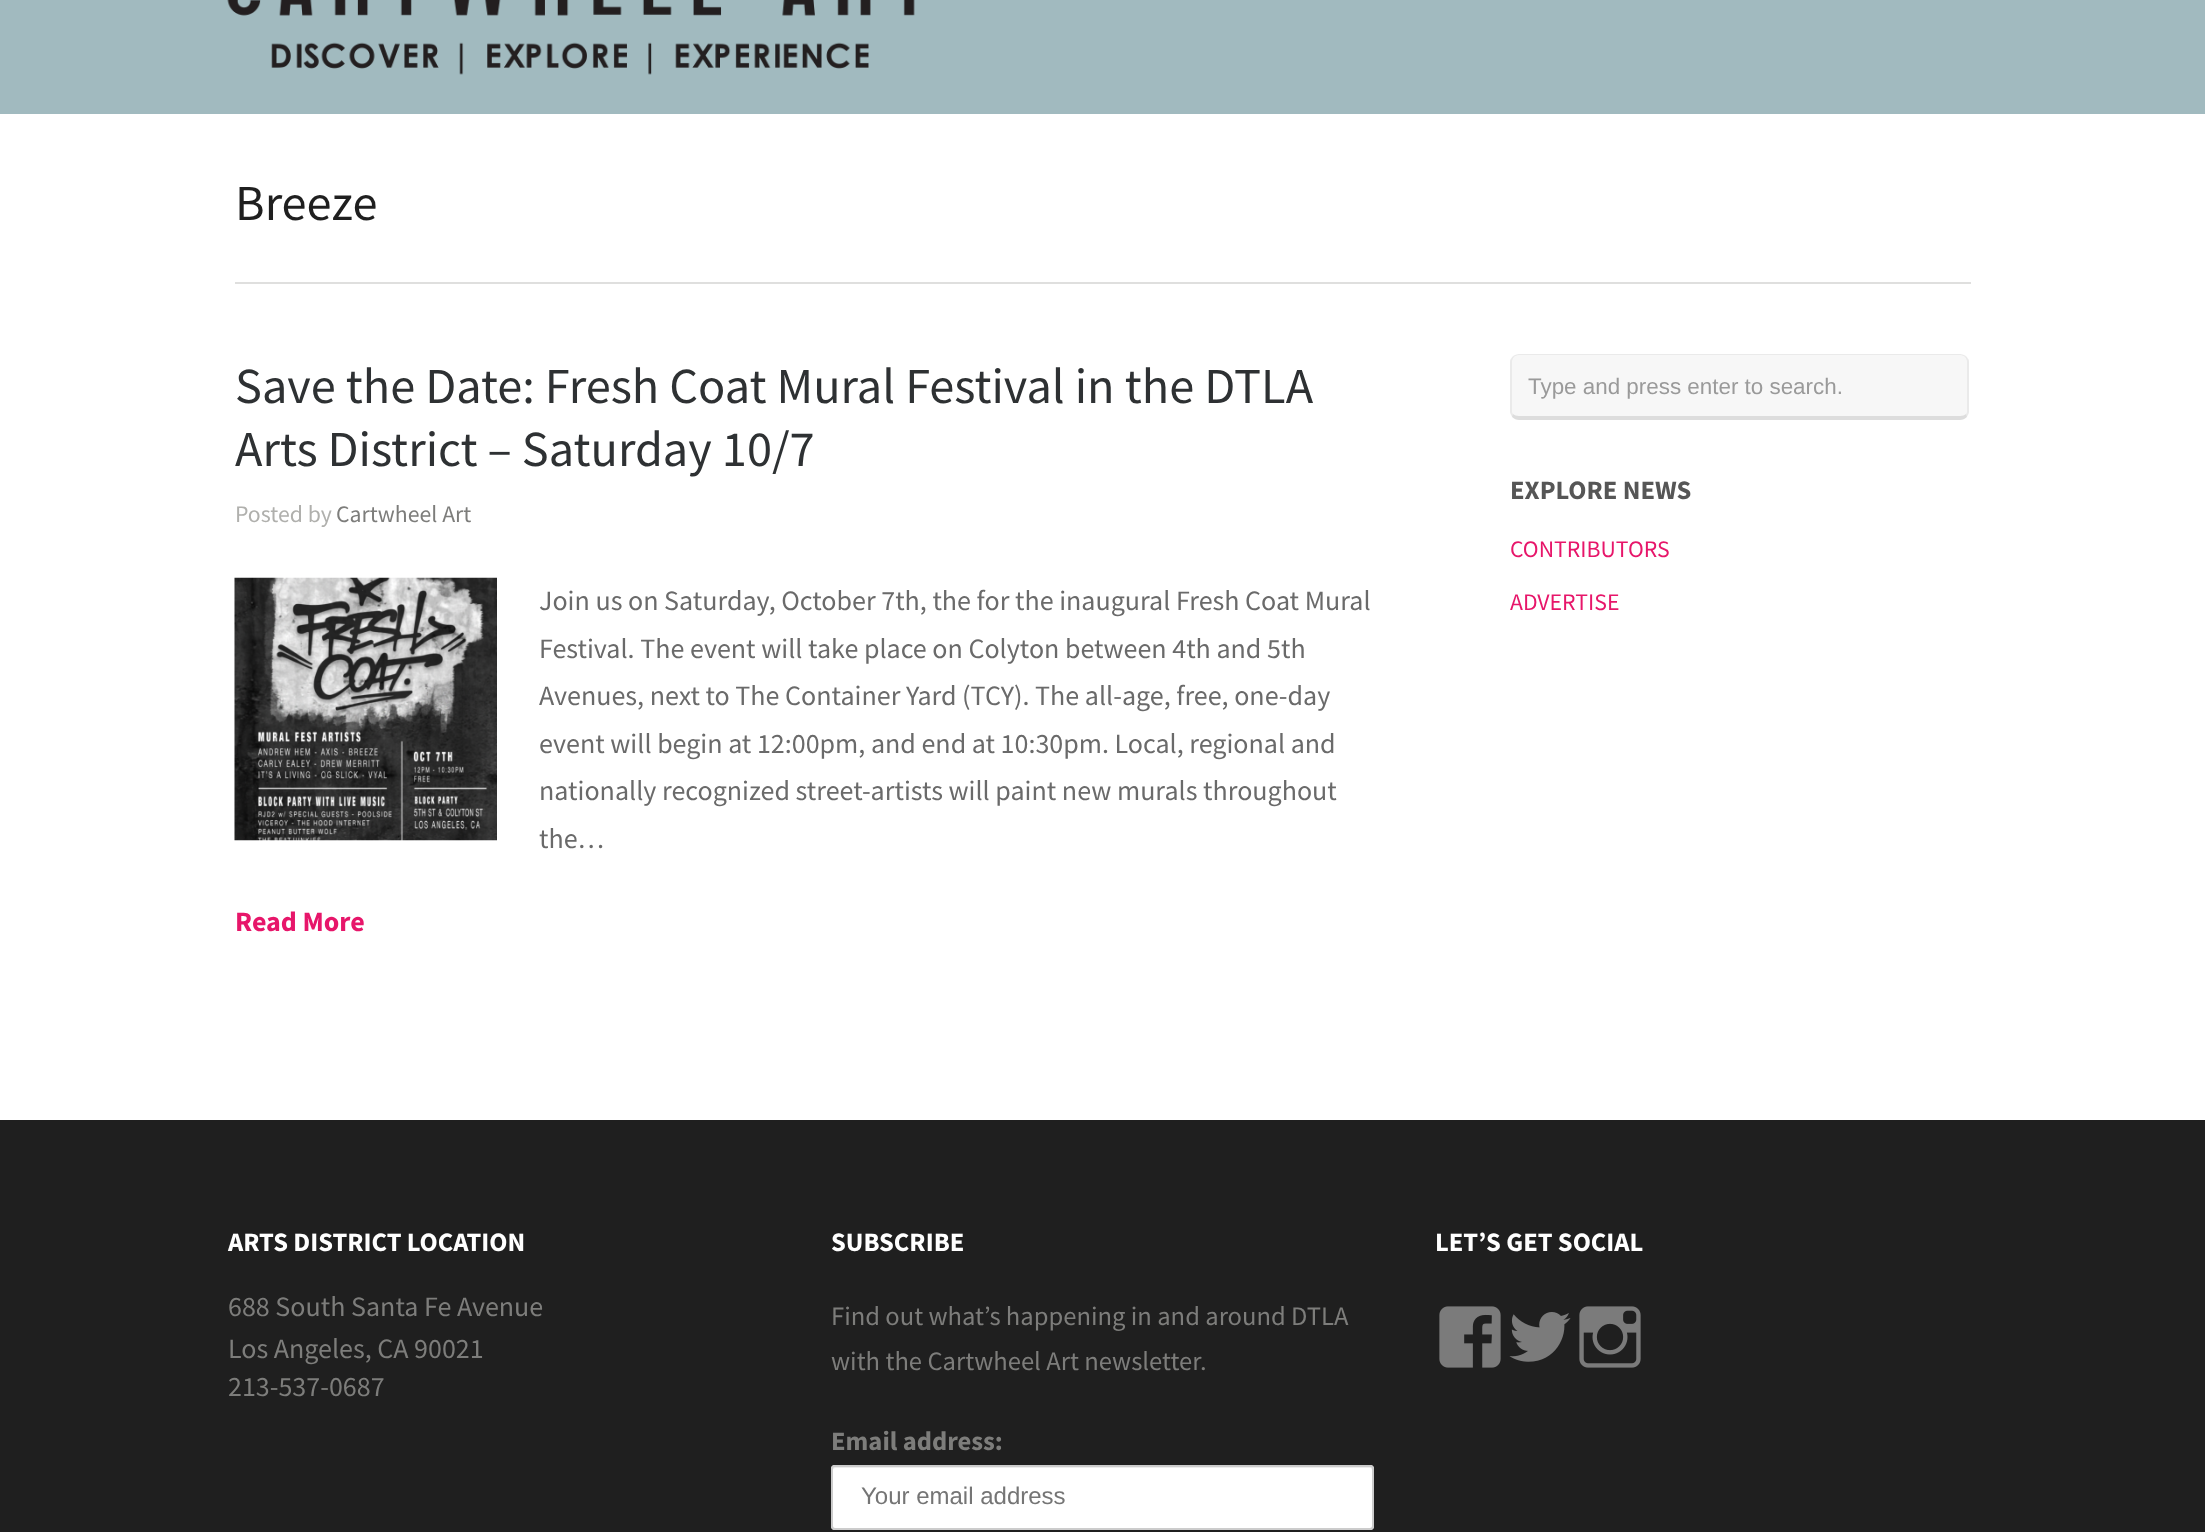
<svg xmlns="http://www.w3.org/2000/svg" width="2205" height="1532">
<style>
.a{font:50.4px Source Sans Pro;fill:#1f1f1f}
.b{font:50.4px Source Sans Pro;fill:#2e3133}
.c{font:23.75px Source Sans Pro;fill:#b0b0ad}
.d{font:23.75px Source Sans Pro;fill:#7d7d7b}
.e{font:28px Source Sans Pro;fill:#6a6a6a}
.f{font:bold 28px Source Sans Pro;fill:#e7166a}
.g{font:22.4px Liberation Sans;fill:#9a9a9a}
.h{font:bold 26.6px Source Sans Pro;fill:#565656}
.i{font:23.75px Source Sans Pro;fill:#e7166a}
.j{font:bold 26.6px Source Sans Pro;fill:#fff}
.k{font:28px Source Sans Pro;fill:#7d7d7b}
.l{font:26.6px Source Sans Pro;fill:#7d7d7b}
.m{font:bold 26.6px Source Sans Pro;fill:#7d7d7b}
.n{font:24px Liberation Sans;fill:#757575}
</style>
<rect width="100%" height="100%" fill="#fff"/>
<path fill="#a1babf" d="M0 0h2205v114H0z"/>
<image href="1.png" x="227" y="0" width="688" height="75"/>
<path fill="#dfdfde" d="M235 282h1736v2H235z"/>
<image href="2.png" x="234" y="577" width="263" height="264"/>
<rect fill="#f7f7f7" x="1510" y="354" width="459" height="66" rx="9"/>
<path fill="#0000000d" d="M1519 354c-2 0-5 1-6 2l1 1c1-1 3-2 5-2h441c2 0 4 1 5 2l1-1c-1-1-4-2-6-2z"/>
<path fill="#0000000d" d="M1966 356c1 1 2 2 3 4v53l-2 4l-1-3c1-1 1-2 1-3v-49c0-2-1-4-2-5z"/>
<path fill="#0000001a" d="M1519 420h441c3 0 5-1 7-3l-1-3c-1 1-4 2-6 2h-441c-2 0-5-1-6-2l-1 3c2 2 4 3 7 3z"/>
<path fill="#0000000d" d="M1510 360c1-2 2-3 3-4l1 1c-1 1-2 3-2 5v49c0 1 0 2 1 3l-1 3l-2-4z"/>
<path fill="#1f1f1f" d="M0 1120h2205v412H0z"/>
<rect fill="#fff" x="831" y="1465" width="543" height="65" rx="4"/>
<path fill="#ececec" d="M835 1468h536l1 2v-1c0-1-1-2-2-2h-535c-1 0-2 1-2 2z"/>
<rect fill="none" stroke="#ccc" stroke-width="2" x="832" y="1466" width="541" height="63" rx="3"/>
<image href="3.png" x="1439" y="1306" width="62" height="62"/>
<image href="4.png" x="1509" y="1312" width="62" height="50"/>
<image href="5.png" x="1579" y="1306" width="62" height="62"/>
<text class="a" x="235" y="220">Breeze</text>
<text class="b" x="235" y="403">Save the Date: Fresh Coat Mural Festival in the DTLA</text>
<text class="b" x="235" y="466">Arts District – Saturday 10/7</text>
<text class="c" x="235" y="522">Posted by</text>
<text class="d" x="336" y="522">Cartwheel Art</text>
<text class="e" x="539" y="610">Join us on Saturday, October 7th, the for the inaugural Fresh Coat Mural</text>
<text class="e" x="539" y="658">Festival. The event will take place on Colyton between 4th and 5th</text>
<text class="e" x="539" y="705">Avenues, next to The Container Yard (TCY). The all-age, free, one-day</text>
<text class="e" x="539" y="753">event will begin at 12:00pm, and end at 10:30pm. Local, regional and</text>
<text class="e" x="539" y="800">nationally recognized street-artists will paint new murals throughout</text>
<text class="e" x="539" y="848">the…</text>
<text class="f" x="235" y="931">Read More</text>
<text class="g" x="1528" y="394">Type and press enter to search.</text>
<text class="h" x="1510" y="499">EXPLORE NEWS</text>
<text class="i" x="1510" y="557">CONTRIBUTORS</text>
<text class="i" x="1510" y="610">ADVERTISE</text>
<text class="j" x="228" y="1251">ARTS DISTRICT LOCATION</text>
<text class="k" x="228" y="1316">688 South Santa Fe Avenue</text>
<text class="k" x="228" y="1358">Los Angeles, CA 90021</text>
<text class="k" x="228" y="1396">213-537-0687</text>
<text class="j" x="831" y="1251">SUBSCRIBE</text>
<text class="l" x="831" y="1325">Find out what’s happening in and around DTLA</text>
<text class="l" x="831" y="1370">with the Cartwheel Art newsletter.</text>
<text class="m" x="831" y="1450">Email address:</text>
<text class="n" x="861" y="1504">Your email address</text>
<text class="j" x="1435" y="1251">LET’S GET SOCIAL</text>
</svg>
